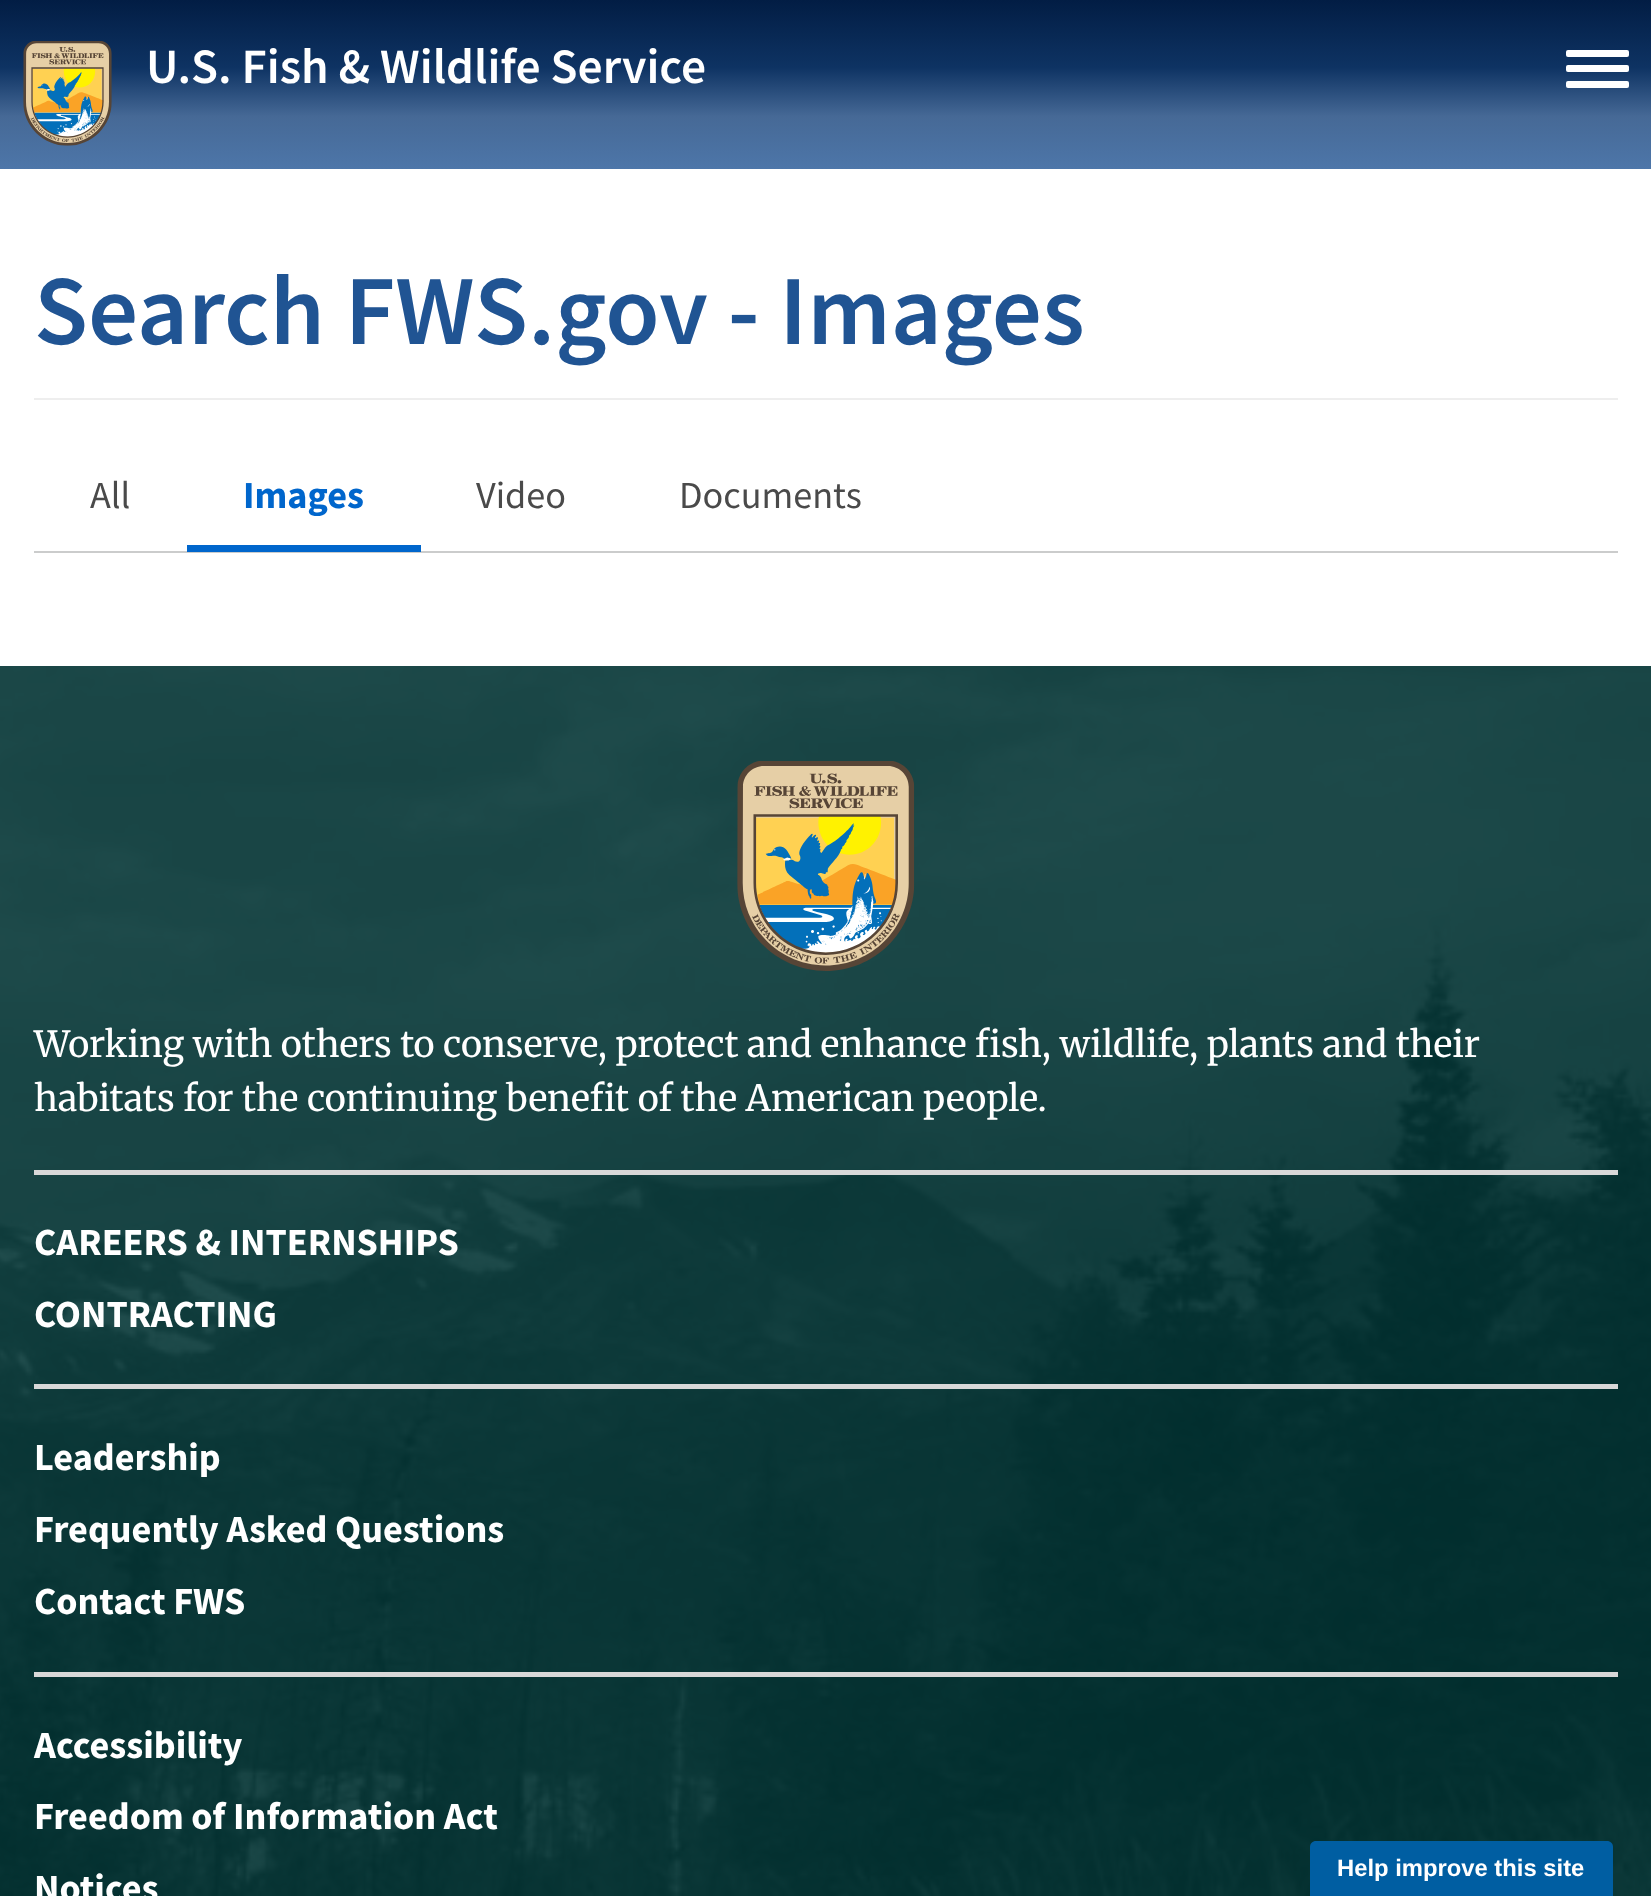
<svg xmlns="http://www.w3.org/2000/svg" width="1651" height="1896">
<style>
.a{font:600 49.5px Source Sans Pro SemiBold;fill:#fff}
.b{font:600 99px Source Sans Pro SemiBold;fill:#205493}
.c{font:38.25px Source Sans Pro;fill:#4a4a4a}
.d{font:bold 38.25px Source Sans Pro;fill:#06c}
.e{font:36px Merriweather;fill:#fff}
.f{font:bold 38.25px Source Sans Pro;fill:#fff}
.g{font:bold 23.8px Liberation Sans;fill:#fff}
</style>
<defs>
<linearGradient id="g1" gradientUnits="userSpaceOnUse" x1="826" y1="0" x2="826" y2="169"><stop offset="0" stop-color="#021d44"/><stop offset="0.4" stop-color="#0e3363"/><stop offset="0.69" stop-color="#466996"/><stop offset="1" stop-color="#4d76a9"/></linearGradient>
</defs>
<rect width="100%" height="100%" fill="#fff"/>
<path fill="url(#g1)" d="M0 0h1651v169H0z"/>
<image href="1.png" x="23" y="41" width="89" height="105"/>
<rect fill="#fff" x="1566" y="50" width="63" height="7" rx="2"/>
<rect fill="#fff" x="1566" y="65" width="63" height="7" rx="2"/>
<rect fill="#fff" x="1566" y="81" width="63" height="7" rx="2"/>
<path fill="#eee" d="M34 398h1584v2H34z"/>
<path fill="#cbcccc" d="M34 551h1584v2H34z"/>
<path fill="#06c" d="M187 545h234v7H187z"/>
<image href="2.png" x="0" y="666" width="1651" height="1230"/>
<image href="3.png" x="737" y="761" width="178" height="210"/>
<path fill="#d8d8d8" d="M34 1170h1584v5H34z"/>
<path fill="#d8d8d8" d="M34 1384h1584v5H34z"/>
<path fill="#d8d8d8" d="M34 1672h1584v5H34z"/>
<path fill="#005ea2" d="M1316 1841h291c3.5 0 6 2.5 6 6v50h-303v-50c0-3.5 2.5-6 6-6z"/>
<text class="a" x="146" y="83">U.S. Fish &amp; Wildlife Service</text>
<text class="b" x="34" y="344">Search FWS.gov - Images</text>
<text class="c" x="90" y="508">All</text>
<text class="d" x="243" y="508">Images</text>
<text class="c" x="476" y="508">Video</text>
<text class="c" x="679" y="508">Documents</text>
<text class="e" x="34" y="1057">Working with others to conserve, protect and enhance fish, wildlife, plants and their</text>
<text class="e" x="34" y="1111">habitats for the continuing benefit of the American people.</text>
<text class="f" x="34" y="1255">CAREERS &amp; INTERNSHIPS</text>
<text class="f" x="34" y="1327">CONTRACTING</text>
<text class="f" x="34" y="1470">Leadership</text>
<text class="f" x="34" y="1542">Frequently Asked Questions</text>
<text class="f" x="34" y="1614">Contact FWS</text>
<text class="f" x="34" y="1758">Accessibility</text>
<text class="f" x="34" y="1829">Freedom of Information Act</text>
<text class="f" x="34" y="1901">Notices</text>
<text class="g" x="1337" y="1876">Help improve this site</text>
</svg>
